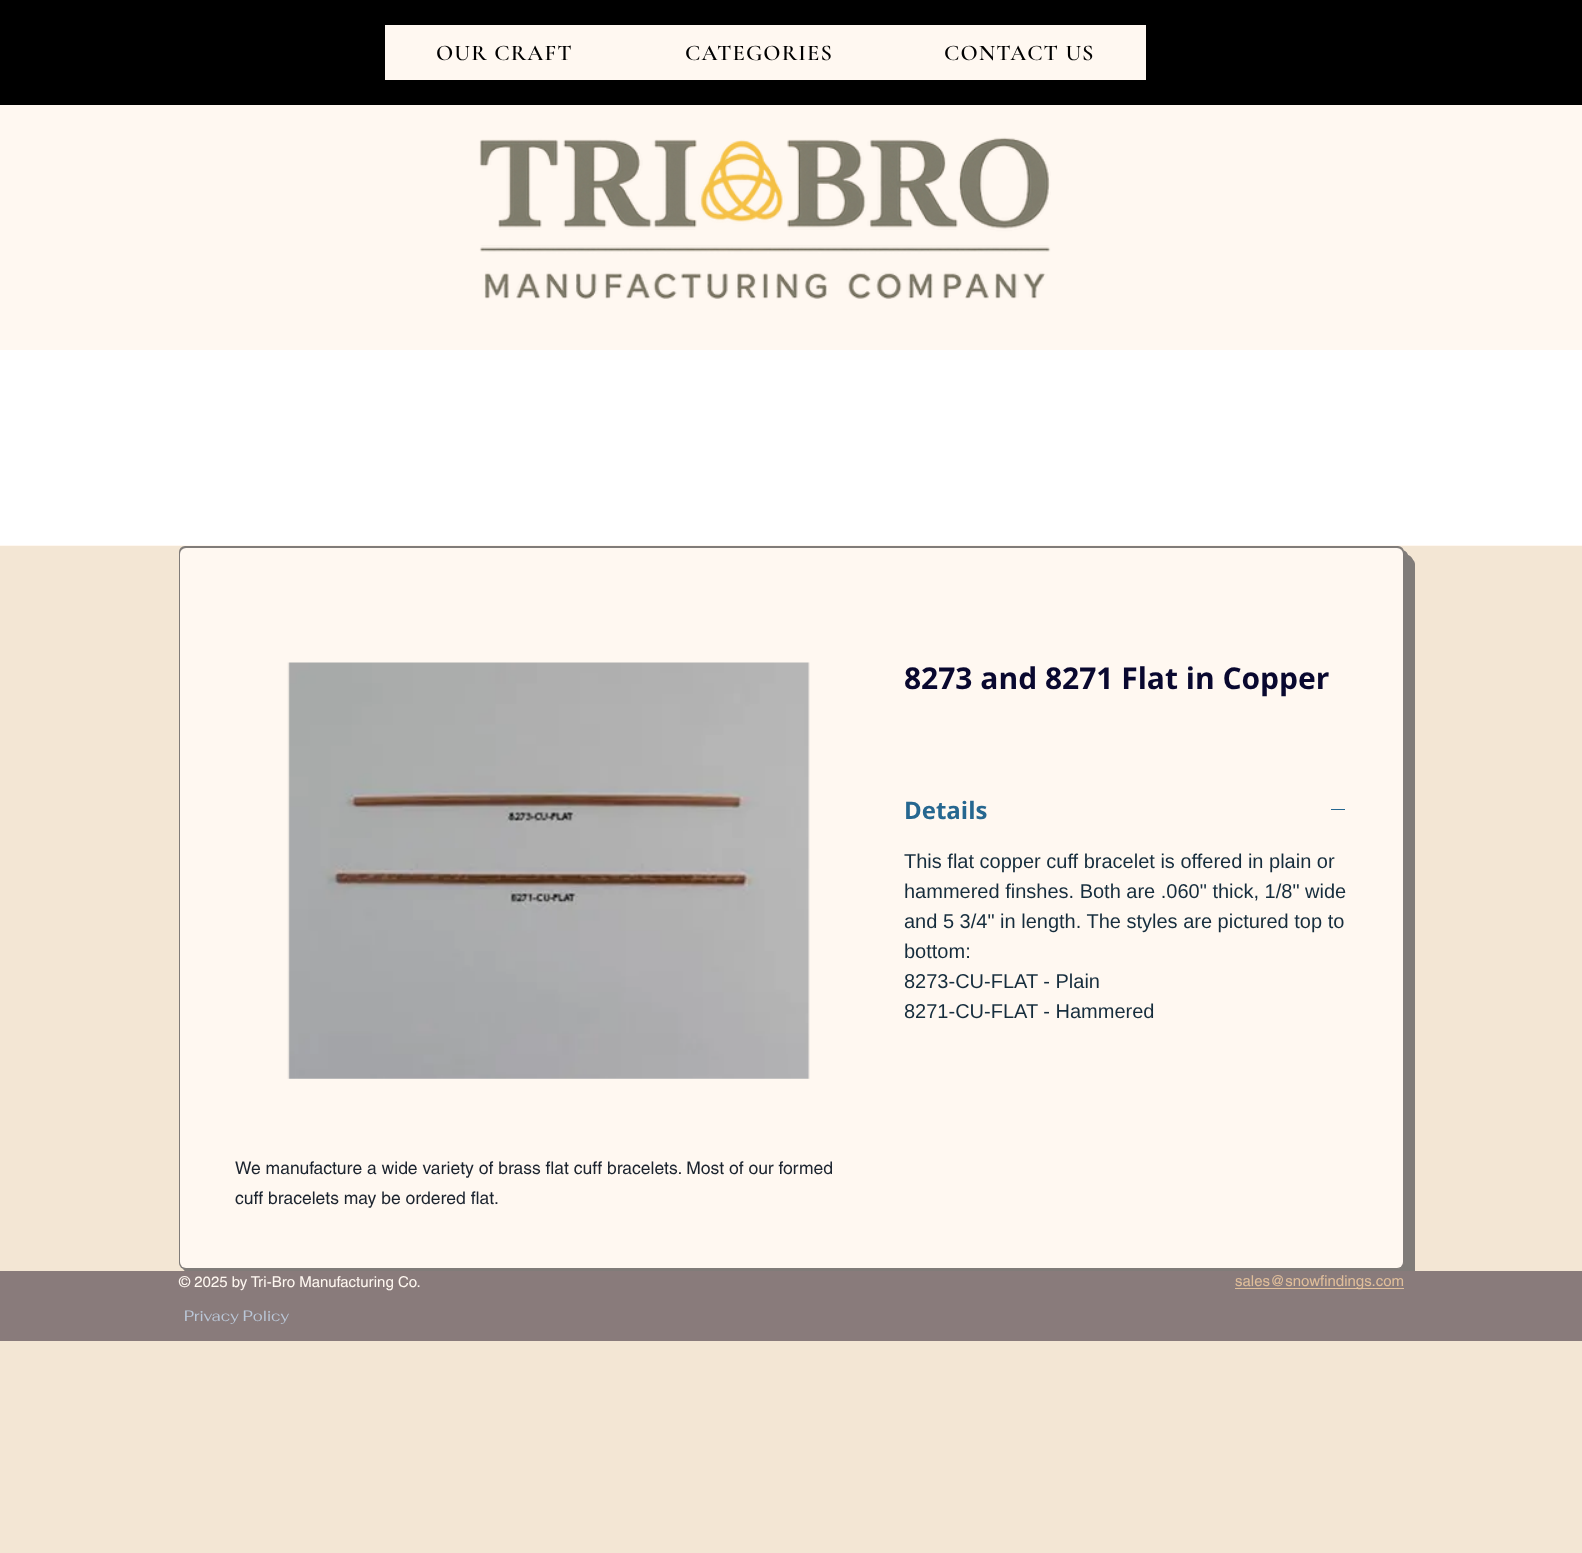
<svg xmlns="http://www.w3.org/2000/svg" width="1582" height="1553">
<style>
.a{font:600 22.5px Cormorant Garamond;letter-spacing:1.1px;fill:#000}
.b{font:bold 30px Open Sans;fill:#09082f}
.c{font:bold 24px Open Sans;fill:#266790}
.d{font:20px Liberation Sans;fill:#162d3d}
.e{font:17.5px helvetica;fill:#1c242f}
.f{font:15px helvetica;fill:#fff8f1}
.g{font:15px helvetica;fill:#e0be9a}
.h{font:15px Fahkwang;fill:#bac7d8}
</style>
<rect width="100%" height="100%" fill="#f3e6d4"/>
<path fill="#000" d="M0 0h1582v105H0z"/>
<path fill="#fff8f1" d="M385 25h761v55H385z"/>
<path fill="#fff8f1" d="M0 105h1582v441H0z"/>
<image href="1.png" x="479" y="137" width="572" height="162"/>
<path fill="#fff" d="M0 350h1582v195H0z"/>
<path fill="#807c79" d="M190 1269v5c0 3 3 6 6 6h1213c3 0 6-3 6-6v-710c0-3-3-6-6-6h-5v704c0 4-3 7-6 7z"/>
<path fill="#807c79" d="M188 1269v3c0 3 3 6 6 6h1213c3 0 6-3 6-6v-711c0-3-3-6-6-6h-3v707c0 4-3 7-6 7z"/>
<path fill="#807c79" d="M185 1269c0 3 3 6 6 6h1213c3 0 6-3 6-6v-710c0-3-3-6-6-6v709c0 4-3 7-6 7z"/>
<path fill="#807c79" d="M183 1268c1 3 3 5 6 5h1213c3 0 6-3 6-6v-711c0-3-2-5-5-6l1 2v710c0 4-3 7-6 7z"/>
<path fill="#807c79" d="M181 1267c1 2 3 3 5 3h1213c3 0 6-3 6-6v-710c0-2-1-3-2-4l1 2v710c0 4-3 7-6 7h-1213c-2 0-3-1-4-2z"/>
<rect fill="#807c79" x="179" y="546" width="1225" height="723" rx="6"/>
<rect fill="#fff8f1" x="180" y="548" width="1223" height="720" rx="6"/>
<path fill="#266790" d="M1331 809h14v1H1331z"/>
<image href="2.png" x="287" y="662" width="523" height="417"/>
<path fill="#897b7b" d="M0 1271h1582v70H0z"/>
<path fill="#e0be9a" d="M1235 1288h169v1H1235z"/>
<text class="a" x="436" y="60">OUR CRAFT</text>
<text class="a" x="685" y="60">CATEGORIES</text>
<text class="a" x="944" y="60">CONTACT US</text>
<text class="b" x="904" y="689">8273 and 8271 Flat in Copper</text>
<text class="c" x="904" y="819">Details</text>
<text class="d" x="904" y="868">This flat copper cuff bracelet is offered in plain or</text>
<text class="d" x="904" y="898">hammered finshes. Both are .060" thick, 1/8" wide</text>
<text class="d" x="904" y="928">and 5 3/4" in length. The styles are pictured top to</text>
<text class="d" x="904" y="958">bottom:</text>
<text class="d" x="904" y="988">8273-CU-FLAT - Plain</text>
<text class="d" x="904" y="1018">8271-CU-FLAT - Hammered</text>
<text class="e" x="235" y="1174">We manufacture a wide variety of brass flat cuff bracelets. Most of our formed</text>
<text class="e" x="235" y="1204">cuff bracelets may be ordered flat.</text>
<text class="f" x="179" y="1287">© 2025 by Tri-Bro Manufacturing Co.</text>
<text class="g" x="1235" y="1286">sales@snowfindings.com</text>
<text class="h" x="184" y="1321">Privacy Policy</text>
</svg>
